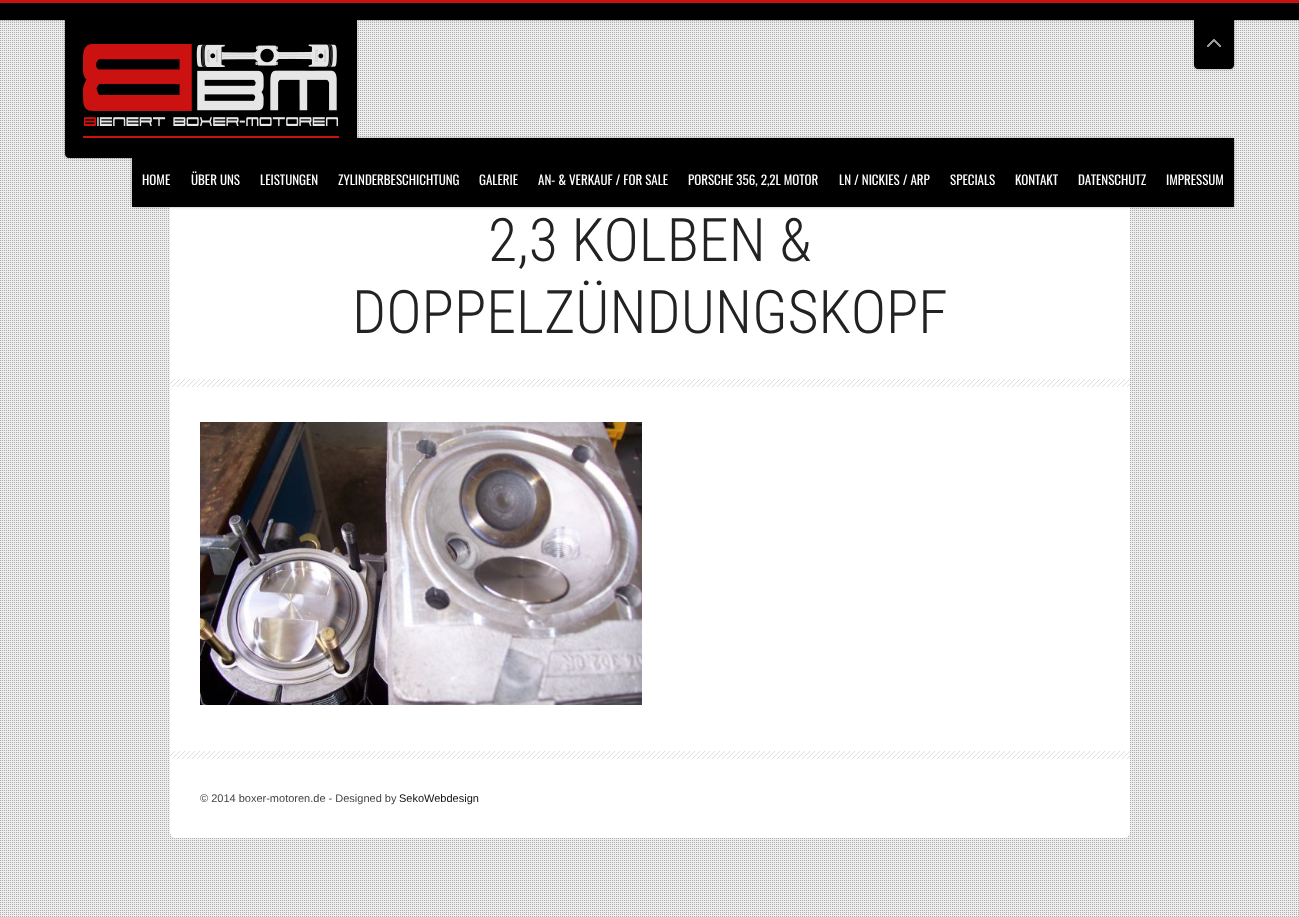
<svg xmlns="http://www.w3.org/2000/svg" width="1299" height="917">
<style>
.a{font:13px Oswald;fill:#fff}
.b{font:300 60px Roboto Condensed;fill:#222}
.c{font:11px Liberation Sans;fill:#444}
.d{font:11px Liberation Sans;fill:#111}
</style>
<defs>
<clipPath id="clip1"><path d="M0 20h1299v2H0z"/></clipPath>
</defs>
<rect width="100%" height="100%" fill="#eee"/>
<image href="1.png" x="0" y="20" width="1299" height="897"/>
<path fill="#000" d="M0 3h1299v17H0z"/>
<g clip-path="url(#clip1)">
<path fill="#0000004d" filter="blur(1.5px)" d="M0 0h1299v20H0z"/>
</g>
<rect fill="#0000004d" filter="blur(1.5px)" x="1194" width="40" height="69" rx="4"/>
<path fill="#000" d="M1194 0h40v65c0 2-2 4-4 4h-32c-2 0-4-2-4-4z"/>
<path fill="#c11" d="M0 0h1299v3H0z"/>
<rect fill="#fff" x="170" y="175" width="960" height="663" rx="6"/>
<rect fill="#0000004d" filter="blur(1.5px)" x="132" y="138" width="1102" height="69" rx="4"/>
<path fill="#000" d="M132 138h1102v69H132z"/>
<rect fill="#0000004d" filter="blur(1.5px)" x="65" y="20" width="292" height="138" rx="4"/>
<path fill="#000" d="M65 20h292v134c0 2-2 4-4 4h-284c-2 0-4-2-4-4z"/>
<path fill="#c11" d="M83 136h256v2H83z"/>
<image href="2.png" x="83" y="44" width="255" height="82"/>
<image href="3.png" x="1207" y="39" width="14" height="8"/>
<image href="4.png" x="170" y="379" width="960" height="8"/>
<image href="5.png" x="200" y="422" width="442" height="283"/>
<image href="4.png" x="170" y="751" width="960" height="8"/>
<text class="a" x="142" y="185">HOME</text>
<text class="a" x="191" y="185">ÜBER UNS</text>
<text class="a" x="260" y="185">LEISTUNGEN</text>
<text class="a" x="338" y="185">ZYLINDERBESCHICHTUNG</text>
<text class="a" x="479" y="185">GALERIE</text>
<text class="a" x="538" y="185">AN- &amp; VERKAUF / FOR SALE</text>
<text class="a" x="688" y="185">PORSCHE 356, 2,2L MOTOR</text>
<text class="a" x="839" y="185">LN / NICKIES / ARP</text>
<text class="a" x="950" y="185">SPECIALS</text>
<text class="a" x="1015" y="185">KONTAKT</text>
<text class="a" x="1078" y="185">DATENSCHUTZ</text>
<text class="a" x="1166" y="185">IMPRESSUM</text>
<text class="b" x="488" y="261">2,3 KOLBEN &amp;</text>
<text class="b" x="352" y="333">DOPPELZÜNDUNGSKOPF</text>
<text class="c" x="200" y="802">© 2014 boxer-motoren.de - Designed by</text>
<text class="d" x="399" y="802">SekoWebdesign</text>
</svg>
